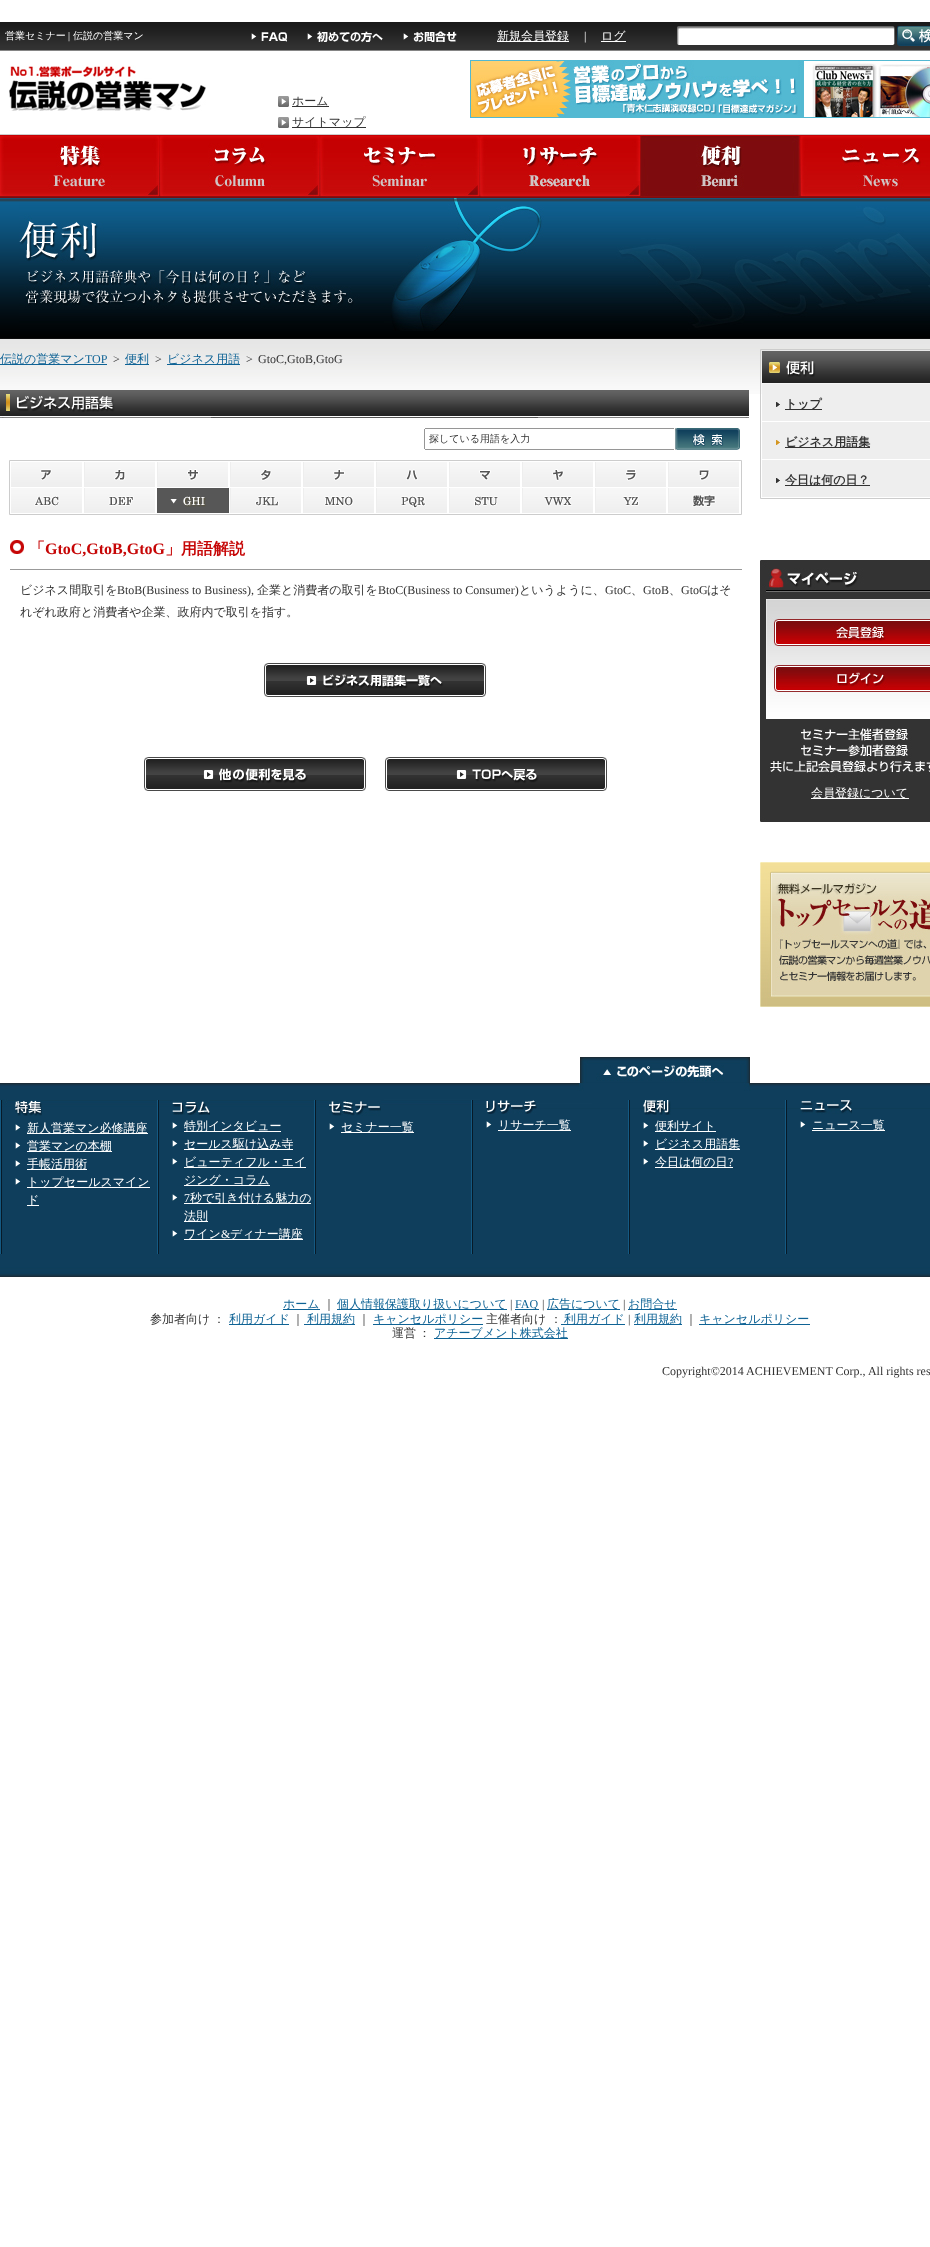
<svg xmlns="http://www.w3.org/2000/svg" width="930" height="2247">
<style>
.a{font:500 10px WenQuanYi Zen Hei;fill:#fff}
.b{font:10px Liberation Serif;fill:#fff}
.c{font:500 12px WenQuanYi Zen Hei;fill:#fff}
.d{font:12px Liberation Serif;fill:#fff}
.e{font:500 12px WenQuanYi Zen Hei;fill:#333}
.f{font:500 12px WenQuanYi Zen Hei;fill:#0f6395}
.g{font:12px Liberation Serif;fill:#0f6395}
.h{font:12px Liberation Serif;fill:#333}
.i{font:500 10px WenQuanYi Zen Hei;fill:#333}
.j{font:bold 16px WenQuanYi Zen Hei;fill:#c60606}
.k{font:bold 16px Liberation Serif;fill:#c60606}
.l{font:bold 12px WenQuanYi Zen Hei;fill:#333}
</style>
<rect width="100%" height="100%" fill="#fff"/>
<image href="1.png" x="0" y="22" width="930" height="28"/>
<path fill="#858585" d="M0 50h930v1H0z"/>
<image href="2.png" x="251" y="32" width="36" height="10"/>
<image href="3.png" x="307" y="31" width="76" height="11"/>
<image href="4.png" x="403" y="31" width="54" height="11"/>
<path fill="#fff" d="M497 41h72v1H497z"/>
<path fill="#fff" d="M601 41h25v1H601z"/>
<image href="5.png" x="677" y="26" width="218" height="19"/>
<path fill="#fff" d="M679 29h1v1H679z"/>
<image href="6.png" x="897" y="26" width="33" height="20"/>
<path fill="#cdcdcd" d="M0 134h930v1H0z"/>
<image href="7.png" x="9" y="65" width="197" height="46"/>
<image href="8.png" x="278" y="96" width="11" height="11"/>
<path fill="#333" d="M292 106h37v1H292z"/>
<image href="8.png" x="278" y="117" width="11" height="11"/>
<path fill="#333" d="M292 127h74v1H292z"/>
<image href="9.png" x="470" y="60" width="460" height="58"/>
<image href="10.png" x="0" y="135" width="930" height="63"/>
<image href="11.png" x="0" y="136" width="160" height="61"/>
<image href="12.png" x="160" y="136" width="160" height="61"/>
<image href="13.png" x="320" y="136" width="160" height="61"/>
<image href="14.png" x="480" y="136" width="160" height="61"/>
<image href="15.png" x="640" y="135" width="160" height="62"/>
<image href="16.png" x="800" y="136" width="130" height="61"/>
<image href="17.png" x="0" y="198" width="930" height="141"/>
<image href="18.png" x="19" y="198" width="911" height="133"/>
<image href="19.png" x="0" y="339" width="930" height="55"/>
<path fill="#0f6395" d="M0 364h107v1H0z"/>
<path fill="#0f6395" d="M125 364h24v1H125z"/>
<path fill="#0f6395" d="M167 364h73v1H167z"/>
<image href="20.png" x="0" y="390" width="749" height="28"/>
<path fill="#969696" d="M425 428h249v1H425z"/>
<path fill="#969696" d="M425 449h249v1H425z"/>
<path fill="#969696" d="M424 429h1v20H424z"/>
<image href="21.png" x="675" y="428" width="65" height="22"/>
<path fill="none" stroke="#ccc" d="M9.5 460.5h732v54H9.5z"/>
<image href="22.png" x="11" y="462" width="71" height="25"/>
<image href="23.png" x="84" y="462" width="71" height="25"/>
<image href="24.png" x="157" y="462" width="71" height="25"/>
<image href="25.png" x="230" y="462" width="71" height="25"/>
<image href="26.png" x="303" y="462" width="71" height="25"/>
<image href="27.png" x="376" y="462" width="71" height="25"/>
<image href="28.png" x="449" y="462" width="71" height="25"/>
<image href="29.png" x="522" y="462" width="71" height="25"/>
<image href="30.png" x="595" y="462" width="71" height="25"/>
<image href="31.png" x="668" y="462" width="71" height="25"/>
<image href="32.png" x="11" y="488" width="71" height="25"/>
<image href="33.png" x="84" y="488" width="71" height="25"/>
<image href="34.png" x="157" y="488" width="72" height="25"/>
<image href="35.png" x="230" y="488" width="71" height="25"/>
<image href="36.png" x="303" y="488" width="71" height="25"/>
<image href="37.png" x="376" y="488" width="71" height="25"/>
<image href="38.png" x="449" y="488" width="71" height="25"/>
<image href="39.png" x="522" y="488" width="71" height="25"/>
<image href="40.png" x="595" y="488" width="71" height="25"/>
<image href="41.png" x="668" y="488" width="71" height="25"/>
<path fill="#999" d="M10 569h732v1H10z"/>
<image href="42.png" x="10" y="540" width="14" height="14"/>
<image href="43.png" x="264" y="663" width="222" height="34"/>
<image href="44.png" x="144" y="757" width="222" height="34"/>
<image href="45.png" x="385" y="757" width="222" height="34"/>
<path fill="none" stroke="#ccc" d="M760.5 349.5h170v149H760.5z"/>
<image href="46.png" x="762" y="351" width="168" height="32"/>
<path fill="#eee" d="M762 384h168v37H762z"/>
<image href="47.png" x="776" y="402" width="4" height="5"/>
<path fill="#333" d="M785 409h37v1H785z"/>
<path fill="#eee" d="M762 422h168v37H762z"/>
<image href="48.png" x="776" y="440" width="4" height="5"/>
<path fill="#333" d="M785 447h85v1H785z"/>
<path fill="#eee" d="M762 460h168v37H762z"/>
<image href="47.png" x="776" y="478" width="4" height="5"/>
<path fill="#333" d="M785 485h85v1H785z"/>
<image href="49.png" x="760" y="560" width="170" height="262"/>
<image href="50.png" x="833" y="628" width="55" height="12"/>
<image href="51.png" x="846" y="672" width="37" height="7"/>
<path fill="#fff" d="M811 798h98v1H811z"/>
<image href="52.png" x="760" y="862" width="170" height="145"/>
<image href="53.png" x="580" y="1057" width="170" height="26"/>
<image href="54.png" x="0" y="1109" width="930" height="168"/>
<image href="55.png" x="0" y="1083" width="930" height="26"/>
<image href="56.png" x="0" y="1100" width="2" height="154"/>
<image href="57.png" x="15" y="1100" width="27" height="16"/>
<image href="58.png" x="15" y="1124" width="6" height="7"/>
<path fill="#fff" d="M27 1133h121v1H27z"/>
<image href="58.png" x="15" y="1142" width="6" height="7"/>
<path fill="#fff" d="M27 1151h85v1H27z"/>
<image href="58.png" x="15" y="1160" width="6" height="7"/>
<path fill="#fff" d="M27 1169h60v1H27z"/>
<image href="58.png" x="15" y="1178" width="6" height="7"/>
<path fill="#fff" d="M27 1187h123v1H27z"/>
<path fill="#fff" d="M27 1205h12v1H27z"/>
<image href="56.png" x="157" y="1100" width="2" height="154"/>
<image href="59.png" x="172" y="1100" width="38" height="15"/>
<image href="58.png" x="172" y="1122" width="6" height="7"/>
<path fill="#fff" d="M184 1131h97v1H184z"/>
<image href="58.png" x="172" y="1140" width="6" height="7"/>
<path fill="#fff" d="M184 1149h109v1H184z"/>
<image href="58.png" x="172" y="1158" width="6" height="7"/>
<path fill="#fff" d="M184 1167h122v1H184z"/>
<path fill="#fff" d="M184 1185h86v1H184z"/>
<image href="58.png" x="172" y="1194" width="6" height="7"/>
<path fill="#fff" d="M184 1203h127v1H184z"/>
<path fill="#fff" d="M184 1221h24v1H184z"/>
<image href="58.png" x="172" y="1230" width="6" height="7"/>
<path fill="#fff" d="M184 1239h119v1H184z"/>
<image href="56.png" x="314" y="1100" width="2" height="154"/>
<image href="60.png" x="329" y="1100" width="52" height="16"/>
<image href="58.png" x="329" y="1123" width="6" height="7"/>
<path fill="#fff" d="M341 1132h73v1H341z"/>
<image href="56.png" x="471" y="1100" width="2" height="154"/>
<image href="61.png" x="486" y="1100" width="51" height="14"/>
<image href="58.png" x="486" y="1121" width="6" height="7"/>
<path fill="#fff" d="M498 1130h73v1H498z"/>
<image href="56.png" x="628" y="1100" width="2" height="154"/>
<image href="62.png" x="643" y="1100" width="28" height="15"/>
<image href="58.png" x="643" y="1122" width="6" height="7"/>
<path fill="#fff" d="M655 1131h61v1H655z"/>
<image href="58.png" x="643" y="1140" width="6" height="7"/>
<path fill="#fff" d="M655 1149h85v1H655z"/>
<image href="58.png" x="643" y="1158" width="6" height="7"/>
<path fill="#fff" d="M655 1167h78v1H655z"/>
<image href="56.png" x="785" y="1100" width="2" height="154"/>
<image href="63.png" x="800" y="1100" width="52" height="14"/>
<image href="58.png" x="800" y="1121" width="6" height="7"/>
<path fill="#fff" d="M812 1130h73v1H812z"/>
<path fill="#0f6395" d="M283 1309h37v1H283z"/>
<path fill="#0f6395" d="M337 1309h170v1H337z"/>
<path fill="#0f6395" d="M515 1309h24v1H515z"/>
<path fill="#0f6395" d="M547 1309h73v1H547z"/>
<path fill="#0f6395" d="M628 1309h49v1H628z"/>
<path fill="#0f6395" d="M229 1324h60v1H229z"/>
<path fill="#0f6395" d="M304 1324h51v1H304z"/>
<path fill="#0f6395" d="M373 1324h110v1H373z"/>
<path fill="#0f6395" d="M561 1324h64v1H561z"/>
<path fill="#0f6395" d="M634 1324h48v1H634z"/>
<path fill="#0f6395" d="M699 1324h111v1H699z"/>
<path fill="#0f6395" d="M434 1338h134v1H434z"/>
<text class="a" x="5" y="39">営業セミナー</text>
<text class="b" x="68" y="39">|</text>
<text class="a" x="73" y="39">伝説の営業マン</text>
<text class="c" x="497" y="40">新規会員登録</text>
<text class="d" x="584" y="40">|</text>
<text class="c" x="601" y="40">ログ</text>
<text class="e" x="292" y="105">ホーム</text>
<text class="e" x="292" y="126">サイトマップ</text>
<text class="f" x="0" y="363">伝説の営業マン</text>
<text class="g" x="85" y="363">TOP</text>
<text class="h" x="113" y="363">&gt;</text>
<text class="f" x="125" y="363">便利</text>
<text class="h" x="155" y="363">&gt;</text>
<text class="f" x="167" y="363">ビジネス用語</text>
<text class="h" x="246" y="363">&gt;</text>
<text class="h" x="258" y="363">GtoC,GtoB,GtoG</text>
<text class="i" x="429" y="442">探している用語を入力</text>
<text class="j" x="29" y="554">「</text>
<text class="k" x="45" y="554">GtoC,GtoB,GtoG</text>
<text class="j" x="165" y="554">」用語解説</text>
<text class="e" x="20" y="594">ビジネス間取引を</text>
<text class="h" x="117" y="594">BtoB(Business to Business),</text>
<text class="e" x="257" y="594">企業と消費者の取引を</text>
<text class="h" x="378" y="594">BtoC(Business to Consumer)</text>
<text class="e" x="519" y="594">というように、</text>
<text class="h" x="605" y="594">GtoC</text>
<text class="e" x="631" y="594">、</text>
<text class="h" x="643" y="594">GtoB</text>
<text class="e" x="669" y="594">、</text>
<text class="h" x="681" y="594">GtoG</text>
<text class="e" x="707" y="594">はそ</text>
<text class="e" x="20" y="616">れぞれ政府と消費者や企業、政府内で取引を指す。</text>
<text class="l" x="785" y="408">トップ</text>
<text class="l" x="785" y="446">ビジネス用語集</text>
<text class="l" x="785" y="484">今日は何の日？</text>
<text class="c" x="811" y="797">会員登録について</text>
<text class="c" x="27" y="1132">新人営業マン必修講座</text>
<text class="c" x="27" y="1150">営業マンの本棚</text>
<text class="c" x="27" y="1168">手帳活用術</text>
<text class="c" x="27" y="1186">トップセールスマイン</text>
<text class="c" x="27" y="1204">ド</text>
<text class="c" x="184" y="1130">特別インタビュー</text>
<text class="c" x="184" y="1148">セールス駆け込み寺</text>
<text class="c" x="184" y="1166">ビューティフル・エイ</text>
<text class="c" x="184" y="1184">ジング・コラム</text>
<text class="d" x="184" y="1202">7</text>
<text class="c" x="190" y="1202">秒で引き付ける魅力の</text>
<text class="c" x="184" y="1220">法則</text>
<text class="c" x="184" y="1238">ワイン</text>
<text class="d" x="221" y="1238">&amp;</text>
<text class="c" x="230" y="1238">ディナー講座</text>
<text class="c" x="341" y="1131">セミナー一覧</text>
<text class="c" x="498" y="1129">リサーチ一覧</text>
<text class="c" x="655" y="1130">便利サイト</text>
<text class="c" x="655" y="1148">ビジネス用語集</text>
<text class="c" x="655" y="1166">今日は何の日</text>
<text class="d" x="728" y="1166">?</text>
<text class="c" x="812" y="1129">ニュース一覧</text>
<text class="f" x="283" y="1308">ホーム</text>
<text class="e" x="323" y="1308">｜</text>
<text class="f" x="337" y="1308">個人情報保護取り扱いについて</text>
<text class="h" x="510" y="1308">|</text>
<text class="g" x="515" y="1308">FAQ</text>
<text class="h" x="542" y="1308">|</text>
<text class="f" x="547" y="1308">広告について</text>
<text class="h" x="623" y="1308">|</text>
<text class="f" x="628" y="1308">お問合せ</text>
<text class="e" x="150" y="1323" word-spacing="-1">参加者向け ：</text>
<text class="f" x="229" y="1323">利用ガイド</text>
<text class="e" x="292" y="1323">｜</text>
<text class="f" x="307" y="1323">利用規約</text>
<text class="e" x="358" y="1323">｜</text>
<text class="f" x="373" y="1323">キャンセルポリシー</text>
<text class="e" x="486" y="1323">主催者向け ：</text>
<text class="f" x="564" y="1323">利用ガイド</text>
<text class="h" x="628" y="1323">|</text>
<text class="f" x="634" y="1323">利用規約</text>
<text class="e" x="685" y="1323">｜</text>
<text class="f" x="699" y="1323">キャンセルポリシー</text>
<text class="e" x="392" y="1337" word-spacing="-1">運営 ：</text>
<text class="f" x="434" y="1337">アチーブメント株式会社</text>
<text class="h" x="662" y="1375">Copyright©2014 ACHIEVEMENT Corp., All rights res</text>
</svg>
